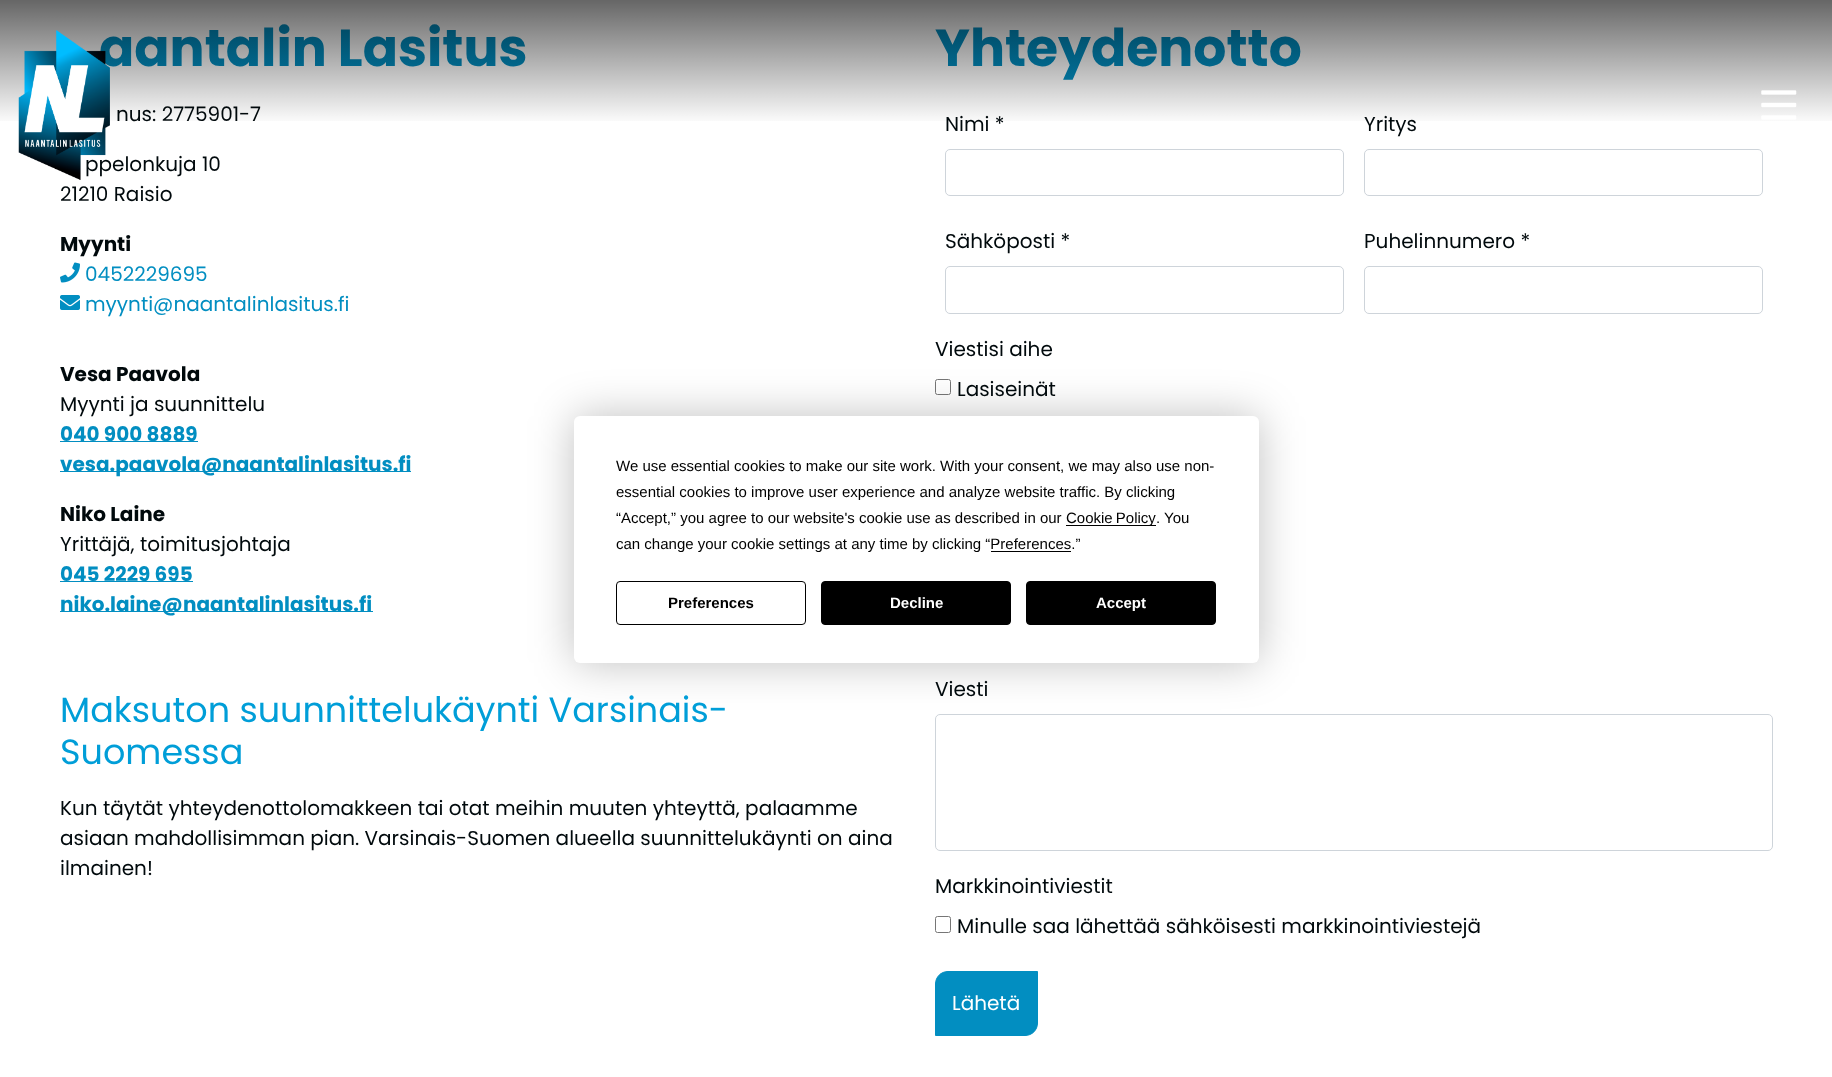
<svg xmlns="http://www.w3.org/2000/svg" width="1832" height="1077">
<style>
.a{font:bold 52px Poppins;fill:#028ec1}
.b{font:20px Poppins;fill:#00090c}
.c{font:bold 20px Poppins;fill:#00090c}
.d{font:20px Poppins;fill:#028ec1}
.e{font:bold 20px Poppins;fill:#028ec1}
.f{font:35px Poppins;fill:#009ed8}
.g{font:20px Poppins;fill:#fff}
.h{font:15px Liberation Sans;fill:#000}
.i{font:bold 15px Liberation Sans;fill:#000}
.j{font:bold 15px Liberation Sans;fill:#fff}
</style>
<defs>
<linearGradient id="g1" gradientUnits="userSpaceOnUse" x1="916" y1="125" x2="916" y2="0"><stop offset="0" stop-color="#000" stop-opacity="0"/><stop offset="1" stop-color="#000" stop-opacity="0.6"/></linearGradient>
</defs>
<rect width="100%" height="100%" fill="#fff"/>
<image href="3.png" x="60" y="262" width="20" height="21"/>
<image href="4.png" x="60" y="295" width="20" height="15"/>
<path fill="#028ec1" d="M60 441h138v1H60z"/>
<path fill="#028ec1" d="M60 471h351v1H60z"/>
<path fill="#028ec1" d="M60 581h133v1H60z"/>
<path fill="#028ec1" d="M60 611h313v1H60z"/>
<rect fill="none" stroke="#ced4da" x="945.5" y="149.5" width="398" height="46" rx="4.5"/>
<rect fill="none" stroke="#ced4da" x="1364.5" y="149.5" width="398" height="46" rx="4.5"/>
<rect fill="none" stroke="#ced4da" x="945.5" y="266.5" width="398" height="47" rx="4.5"/>
<rect fill="none" stroke="#ced4da" x="1364.5" y="266.5" width="398" height="47" rx="4.5"/>
<rect fill="none" stroke="#767676" x="935.5" y="379.5" width="15" height="15" rx="2"/>
<rect fill="none" stroke="#ced4da" x="935.5" y="714.5" width="837" height="136" rx="4.5"/>
<rect fill="none" stroke="#767676" x="935.5" y="916.5" width="15" height="16" rx="2"/>
<path fill="#028ec1" stroke="#028ec1" d="M948 971.5h89.5v51.5c0 7-5.5 12.5-12.5 12.5h-89.5v-51.5c0-7 5.5-12.5 12.5-12.5z"/>
<rect fill="#00000040" filter="blur(22px)" x="574" y="416" width="685" height="247" rx="6"/>
<rect fill="#fff" x="574" y="416" width="685" height="247" rx="6"/>
<path fill="#000" d="M1066 525h90v1H1066z"/>
<path fill="#000" d="M991 551h80v1H991z"/>
<rect fill="none" stroke="#000" x="616.5" y="581.5" width="189" height="43" rx="3.5"/>
<rect fill="#000" stroke="#000" x="821.5" y="581.5" width="189" height="43" rx="3.5"/>
<rect fill="#000" stroke="#000" x="1026.5" y="581.5" width="189" height="43" rx="3.5"/>
<text class="a" x="99" y="66">aantalin Lasitus</text>
<text class="b" x="116" y="121">nus: 2775901-7</text>
<text class="b" x="85" y="171">ppelonkuja 10</text>
<text class="b" x="60" y="201">21210 Raisio</text>
<text class="c" x="60" y="251">Myynti</text>
<text class="d" x="85" y="281">0452229695</text>
<text class="d" x="85" y="311">myynti@naantalinlasitus.fi</text>
<text class="c" x="60" y="381">Vesa Paavola</text>
<text class="b" x="60" y="411">Myynti ja suunnittelu</text>
<text class="e" x="60" y="441">040 900 8889</text>
<text class="e" x="60" y="471">vesa.paavola@naantalinlasitus.fi</text>
<text class="c" x="60" y="521">Niko Laine</text>
<text class="b" x="60" y="551">Yrittäjä, toimitusjohtaja</text>
<text class="e" x="60" y="581">045 2229 695</text>
<text class="e" x="60" y="611">niko.laine@naantalinlasitus.fi</text>
<text class="f" x="60" y="722">Maksuton suunnittelukäynti Varsinais-</text>
<text class="f" x="60" y="764">Suomessa</text>
<text class="b" x="60" y="815">Kun täytät yhteydenottolomakkeen tai otat meihin muuten yhteyttä, palaamme</text>
<text class="b" x="60" y="845">asiaan mahdollisimman pian. Varsinais-Suomen alueella suunnittelukäynti on aina</text>
<text class="b" x="60" y="875">ilmainen!</text>
<text class="a" x="935" y="66">Yhteydenotto</text>
<text class="b" x="945" y="131">Nimi *</text>
<text class="b" x="1364" y="131">Yritys</text>
<path fill="url(#g1)" d="M0 0h1832v121H0z"/>
<image href="2.png" x="1761" y="90" width="36" height="30"/>
<image href="1.png" x="18" y="30" width="92" height="150"/>
<text class="b" x="945" y="248">Sähköposti *</text>
<text class="b" x="1364" y="248">Puhelinnumero *</text>
<text class="b" x="935" y="356">Viestisi aihe</text>
<text class="b" x="957" y="396">Lasiseinät</text>
<text class="b" x="935" y="696">Viesti</text>
<text class="b" x="935" y="893">Markkinointiviestit</text>
<text class="b" x="957" y="933">Minulle saa lähettää sähköisesti markkinointiviestejä</text>
<text class="g" x="952" y="1010">Lähetä</text>
<text class="h" x="616" y="471">We use essential cookies to make our site work. With your consent, we may also use non-</text>
<text class="h" x="616" y="497">essential cookies to improve user experience and analyze website traffic. By clicking</text>
<text class="h" x="616" y="523">“Accept,” you agree to our website's cookie use as described in our</text>
<text class="h" x="1066" y="523" word-spacing="-1">Cookie Policy</text>
<text class="h" x="1156" y="523">. You</text>
<text class="h" x="616" y="549">can change your cookie settings at any time by clicking “Preferences.”</text>
<text class="i" x="668" y="608">Preferences</text>
<text class="j" x="890" y="608">Decline</text>
<text class="j" x="1096" y="608">Accept</text>
</svg>
